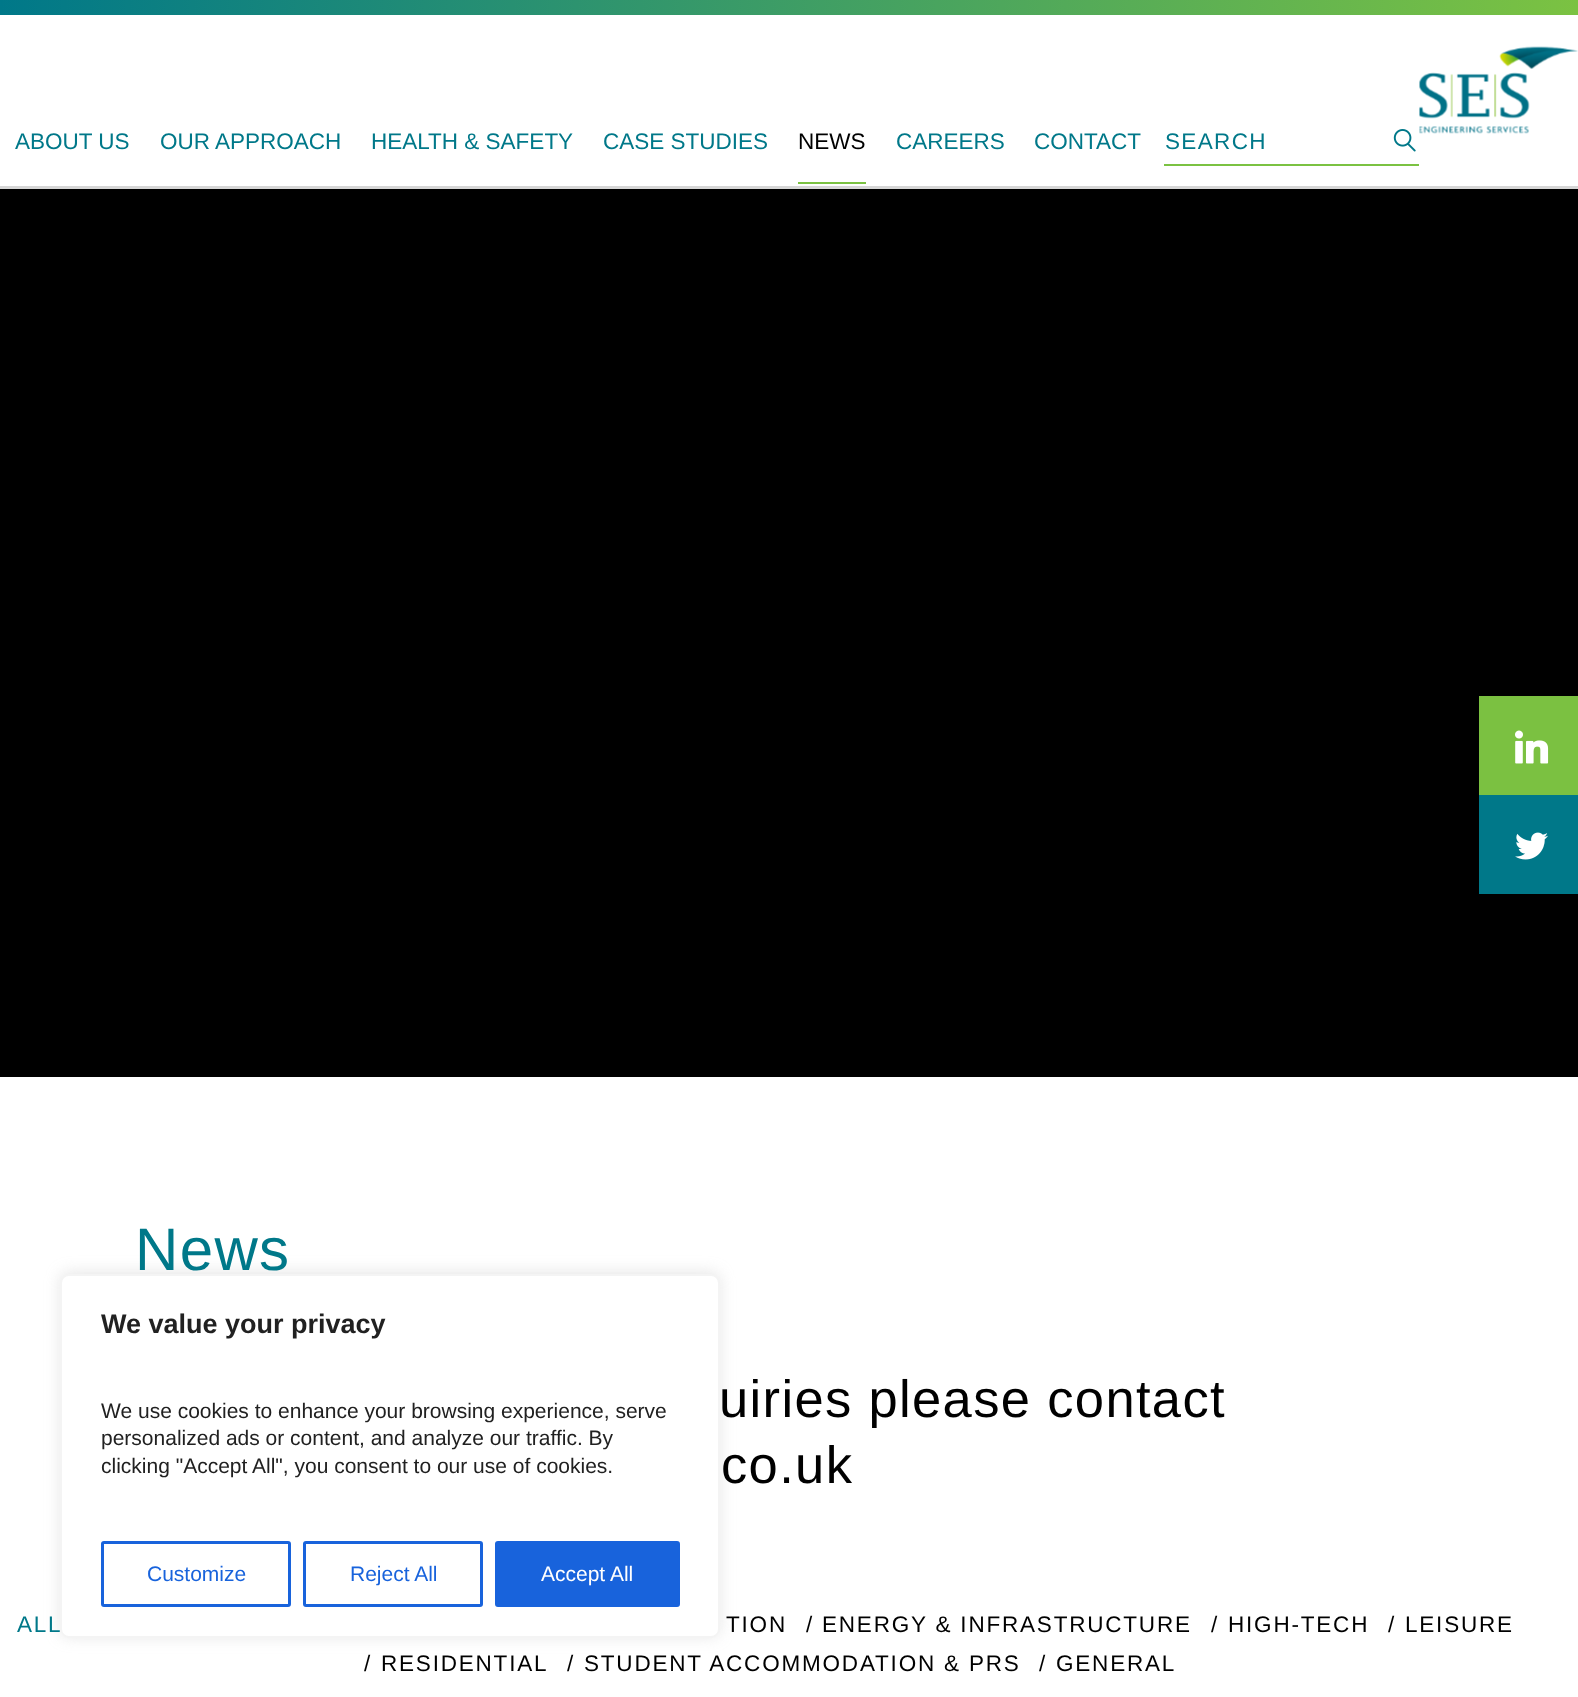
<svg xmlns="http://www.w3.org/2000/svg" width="1578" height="1697">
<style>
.a{font:22.5px Liberation Sans;fill:#007889}
.b{font:22.5px Liberation Sans;fill:#000}
.c{font:22.5px Liberation Sans;letter-spacing:1.35px;fill:#007889}
.d{font:60px Liberation Sans;letter-spacing:1.35px;fill:#007889}
.e{font:52.5px Liberation Sans;letter-spacing:1.35px;fill:#000}
.f{font:22.5px Liberation Sans;letter-spacing:1.8px;fill:#007889}
.g{font:22.5px Liberation Sans;letter-spacing:1.8px;fill:#000}
.h{font:bold 27px Liberation Sans;fill:#212121}
.i{font:21px Liberation Sans;fill:#212121}
.j{font:21px Liberation Sans;fill:#1863dc}
.k{font:21px Liberation Sans;fill:#fff}
</style>
<defs>
<linearGradient id="g1" gradientUnits="userSpaceOnUse" x1="0" y1="7.5" x2="1578" y2="7.5"><stop offset="0" stop-color="#007889"/><stop offset="1" stop-color="#7bc242"/></linearGradient>
</defs>
<rect width="100%" height="100%" fill="#fff"/>
<path fill="#d6d6d6" d="M0 186h1578v3H0z"/>
<path fill="url(#g1)" d="M0 0h1578v15H0z"/>
<image href="1.png" x="1419" y="46" width="159" height="88"/>
<path fill="#7bc242" d="M798 182h68v2H798z"/>
<path fill="#7bc242" d="M1164 164h255v2H1164z"/>
<image href="2.png" x="1393" y="129" width="23" height="23"/>
<path fill="#000" d="M0 189h1578v888H0z"/>
<path fill="#7bc141" d="M1479 696h99v99H1479z"/>
<image href="3.png" x="1515" y="730" width="34" height="34"/>
<path fill="#007889" d="M1479 795h99v99H1479z"/>
<image href="4.png" x="1515" y="832" width="33" height="28"/>
<rect fill="#acabab4d" filter="blur(7.5px)" x="60" y="1272" width="660" height="365" rx="9"/>
<rect fill="#fff" stroke="#f4f4f4" stroke-width="2" x="61" y="1275" width="658" height="362" rx="8"/>
<rect fill="none" stroke="#1863dc" stroke-width="3" x="102.5" y="1542.5" width="187" height="63" rx="1.5"/>
<rect fill="none" stroke="#1863dc" stroke-width="3" x="304.5" y="1542.5" width="177" height="63" rx="1.5"/>
<rect fill="#1863dc" stroke="#1863dc" stroke-width="3" x="496.5" y="1542.5" width="182" height="63" rx="1.5"/>
<text class="a" x="15" y="149">ABOUT US</text>
<text class="a" x="160" y="149">OUR APPROACH</text>
<text class="a" x="371" y="149">HEALTH &amp; SAFETY</text>
<text class="a" x="603" y="149">CASE STUDIES</text>
<text class="b" x="798" y="149">NEWS</text>
<text class="a" x="896" y="149">CAREERS</text>
<text class="a" x="1034" y="149">CONTACT</text>
<text class="c" x="1165" y="149">SEARCH</text>
<text class="d" x="135" y="1270">News</text>
<text class="e" x="719" y="1417">uiries please contact</text>
<text class="e" x="721" y="1483">co.uk</text>
<text class="f" x="17" y="1632">ALL</text>
<text class="g" x="726" y="1632">TION</text>
<text class="b" x="806" y="1632">/</text>
<text class="g" x="822" y="1632">ENERGY &amp; INFRASTRUCTURE</text>
<text class="b" x="1211" y="1632">/</text>
<text class="g" x="1228" y="1632">HIGH-TECH</text>
<text class="b" x="1388" y="1632">/</text>
<text class="g" x="1405" y="1632">LEISURE</text>
<text class="b" x="364" y="1671">/</text>
<text class="g" x="381" y="1671">RESIDENTIAL</text>
<text class="b" x="567" y="1671">/</text>
<text class="g" x="584" y="1671">STUDENT ACCOMMODATION &amp; PRS</text>
<text class="b" x="1039" y="1671">/</text>
<text class="g" x="1056" y="1671">GENERAL</text>
<text class="h" x="101" y="1333">We value your privacy</text>
<text class="i" x="101" y="1418">We use cookies to enhance your browsing experience, serve</text>
<text class="i" x="101" y="1445">personalized ads or content, and analyze our traffic. By</text>
<text class="i" x="101" y="1473">clicking "Accept All", you consent to our use of cookies.</text>
<text class="j" x="147" y="1581">Customize</text>
<text class="j" x="350" y="1581">Reject All</text>
<text class="k" x="541" y="1581">Accept All</text>
</svg>
